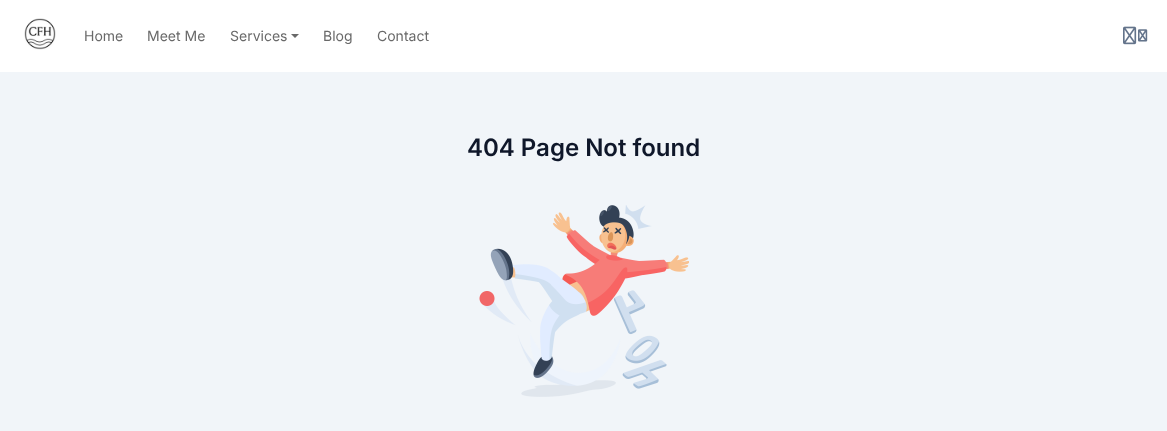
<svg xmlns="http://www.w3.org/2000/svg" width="1167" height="431">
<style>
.a{font:14px Inter;fill:#696969}
.b{font:600 24px Inter;fill:#0f172a}
</style>
<rect width="100%" height="100%" fill="#f1f5f9"/>
<path fill="#fff" d="M0 0h1167v72H0z"/>
<image href="1.png" x="24" y="18" width="32" height="32"/>
<path fill="#696969" d="M291 34h8l-4 4z"/>
<image href="2.png" x="1123" y="26" width="14" height="19"/>
<image href="3.png" x="1138" y="29" width="10" height="13"/>
<image href="4.png" x="479" y="205" width="210" height="192"/>
<text class="a" x="84" y="41">Home</text>
<text class="a" x="147" y="41">Meet Me</text>
<text class="a" x="230" y="41">Services</text>
<text class="a" x="323" y="41">Blog</text>
<text class="a" x="377" y="41">Contact</text>
<text class="b" x="467" y="156">404 Page Not found</text>
</svg>
